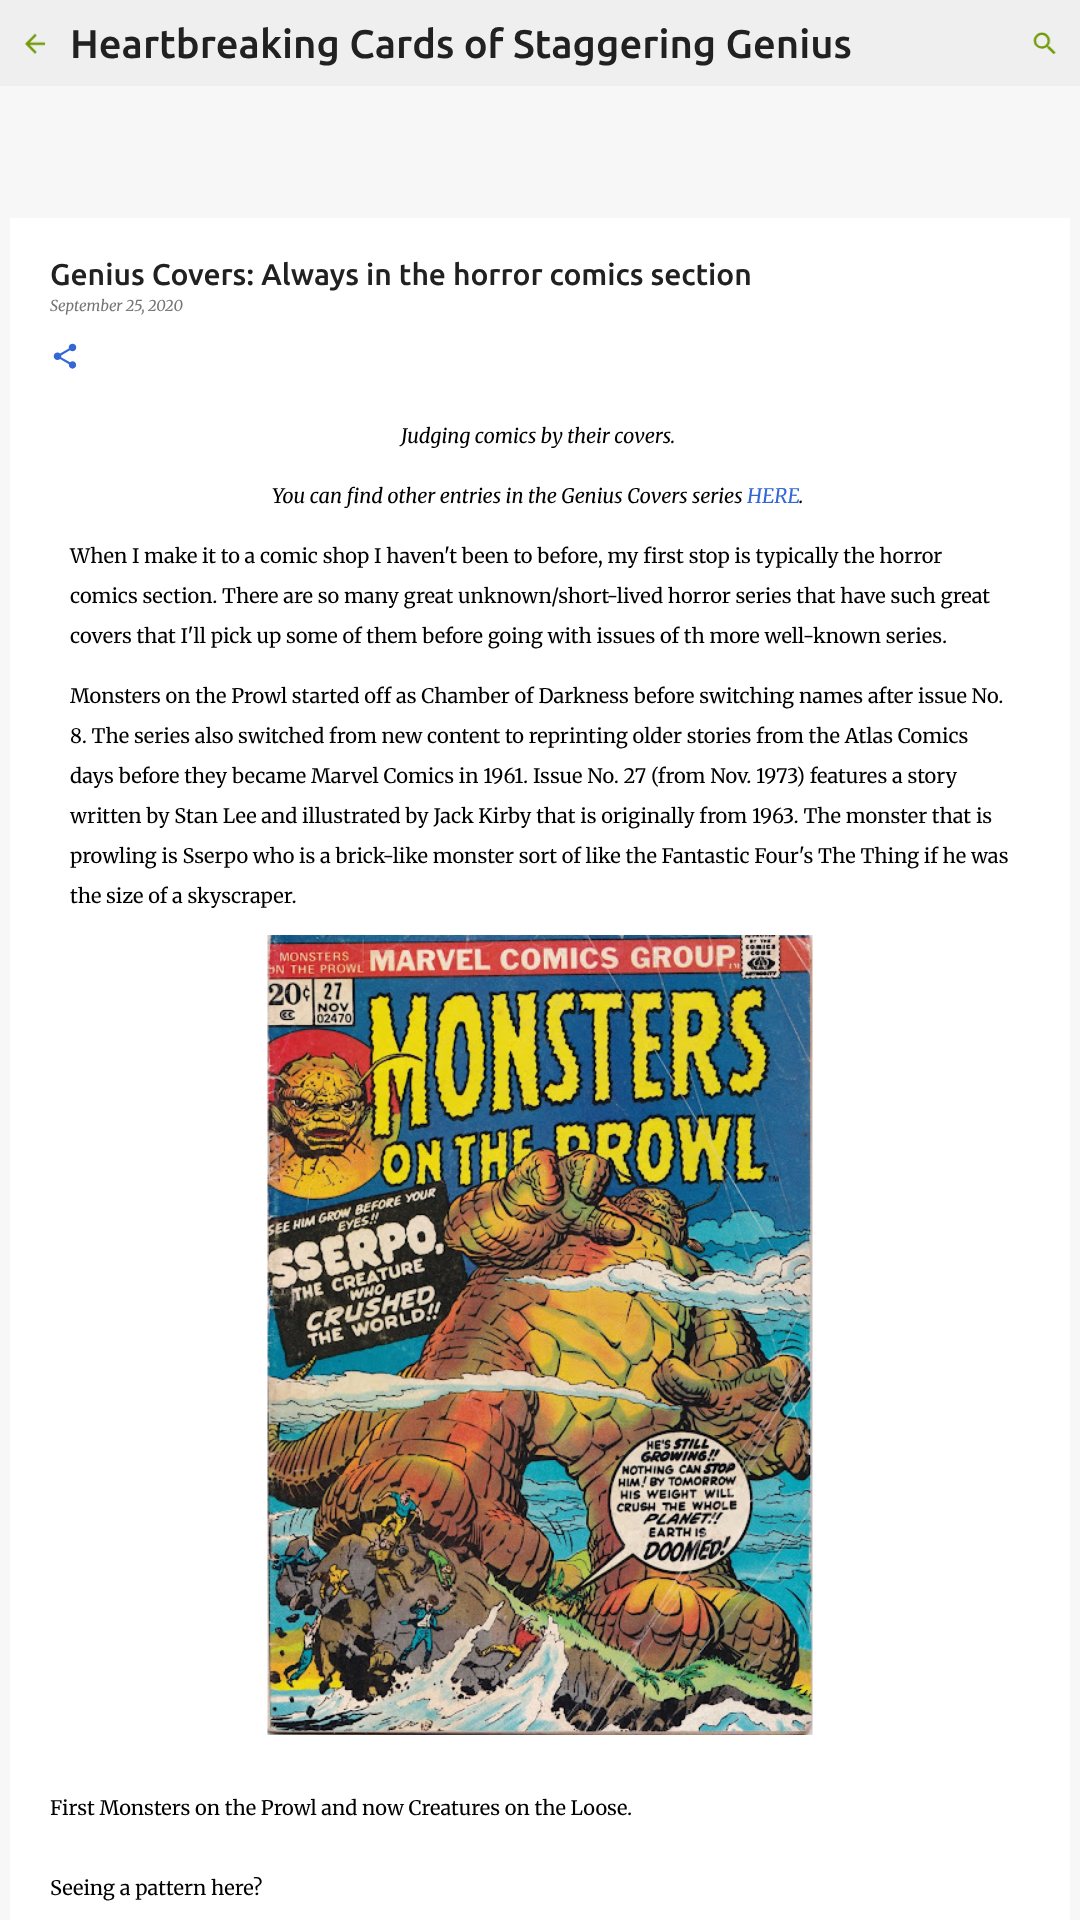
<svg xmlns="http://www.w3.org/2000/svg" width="1080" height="1920">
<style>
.a{font:500 40px Ubuntu;fill:#212121}
.b{font:500 30px Ubuntu;fill:#212121}
.c{font:italic 300 15px Merriweather;fill:#757575}
.d{font:italic 300 20px Merriweather;fill:#000}
.e{font:italic 300 20px Merriweather;fill:#3367d6}
.f{font:300 20px Merriweather;fill:#000}
</style>
<rect width="100%" height="100%" fill="#f7f7f7"/>
<path fill="#efefef" d="M0 0h1080v86H0z"/>
<image href="1.png" x="25" y="33" width="20" height="21"/>
<image href="2.png" x="1033" y="32" width="24" height="23"/>
<path fill="#fff" d="M10 218h1060v1702H10z"/>
<image href="3.png" x="53" y="343" width="24" height="26"/>
<image href="4.png" x="267" y="935" width="546" height="800"/>
<text class="a" x="70" y="58">Heartbreaking Cards of Staggering Genius</text>
<text class="b" x="50" y="285">Genius Covers: Always in the horror comics section</text>
<text class="c" x="50" y="311">September 25, 2020</text>
<text class="d" x="401" y="443">Judging comics by their covers.</text>
<text class="d" x="272" y="503">You can find other entries in the Genius Covers series</text>
<text class="e" x="747" y="503">HERE</text>
<text class="d" x="799" y="503">.</text>
<text class="f" x="70" y="563">When I make it to a comic shop I haven't been to before, my first stop is typically the horror</text>
<text class="f" x="70" y="603">comics section. There are so many great unknown/short-lived horror series that have such great</text>
<text class="f" x="70" y="643">covers that I'll pick up some of them before going with issues of th more well-known series.</text>
<text class="f" x="70" y="703">Monsters on the Prowl started off as Chamber of Darkness before switching names after issue No.</text>
<text class="f" x="70" y="743">8. The series also switched from new content to reprinting older stories from the Atlas Comics</text>
<text class="f" x="70" y="783">days before they became Marvel Comics in 1961. Issue No. 27 (from Nov. 1973) features a story</text>
<text class="f" x="70" y="823">written by Stan Lee and illustrated by Jack Kirby that is originally from 1963. The monster that is</text>
<text class="f" x="70" y="863">prowling is Sserpo who is a brick-like monster sort of like the Fantastic Four's The Thing if he was</text>
<text class="f" x="70" y="903">the size of a skyscraper.</text>
<text class="f" x="50" y="1815">First Monsters on the Prowl and now Creatures on the Loose.</text>
<text class="f" x="50" y="1895">Seeing a pattern here?</text>
</svg>
